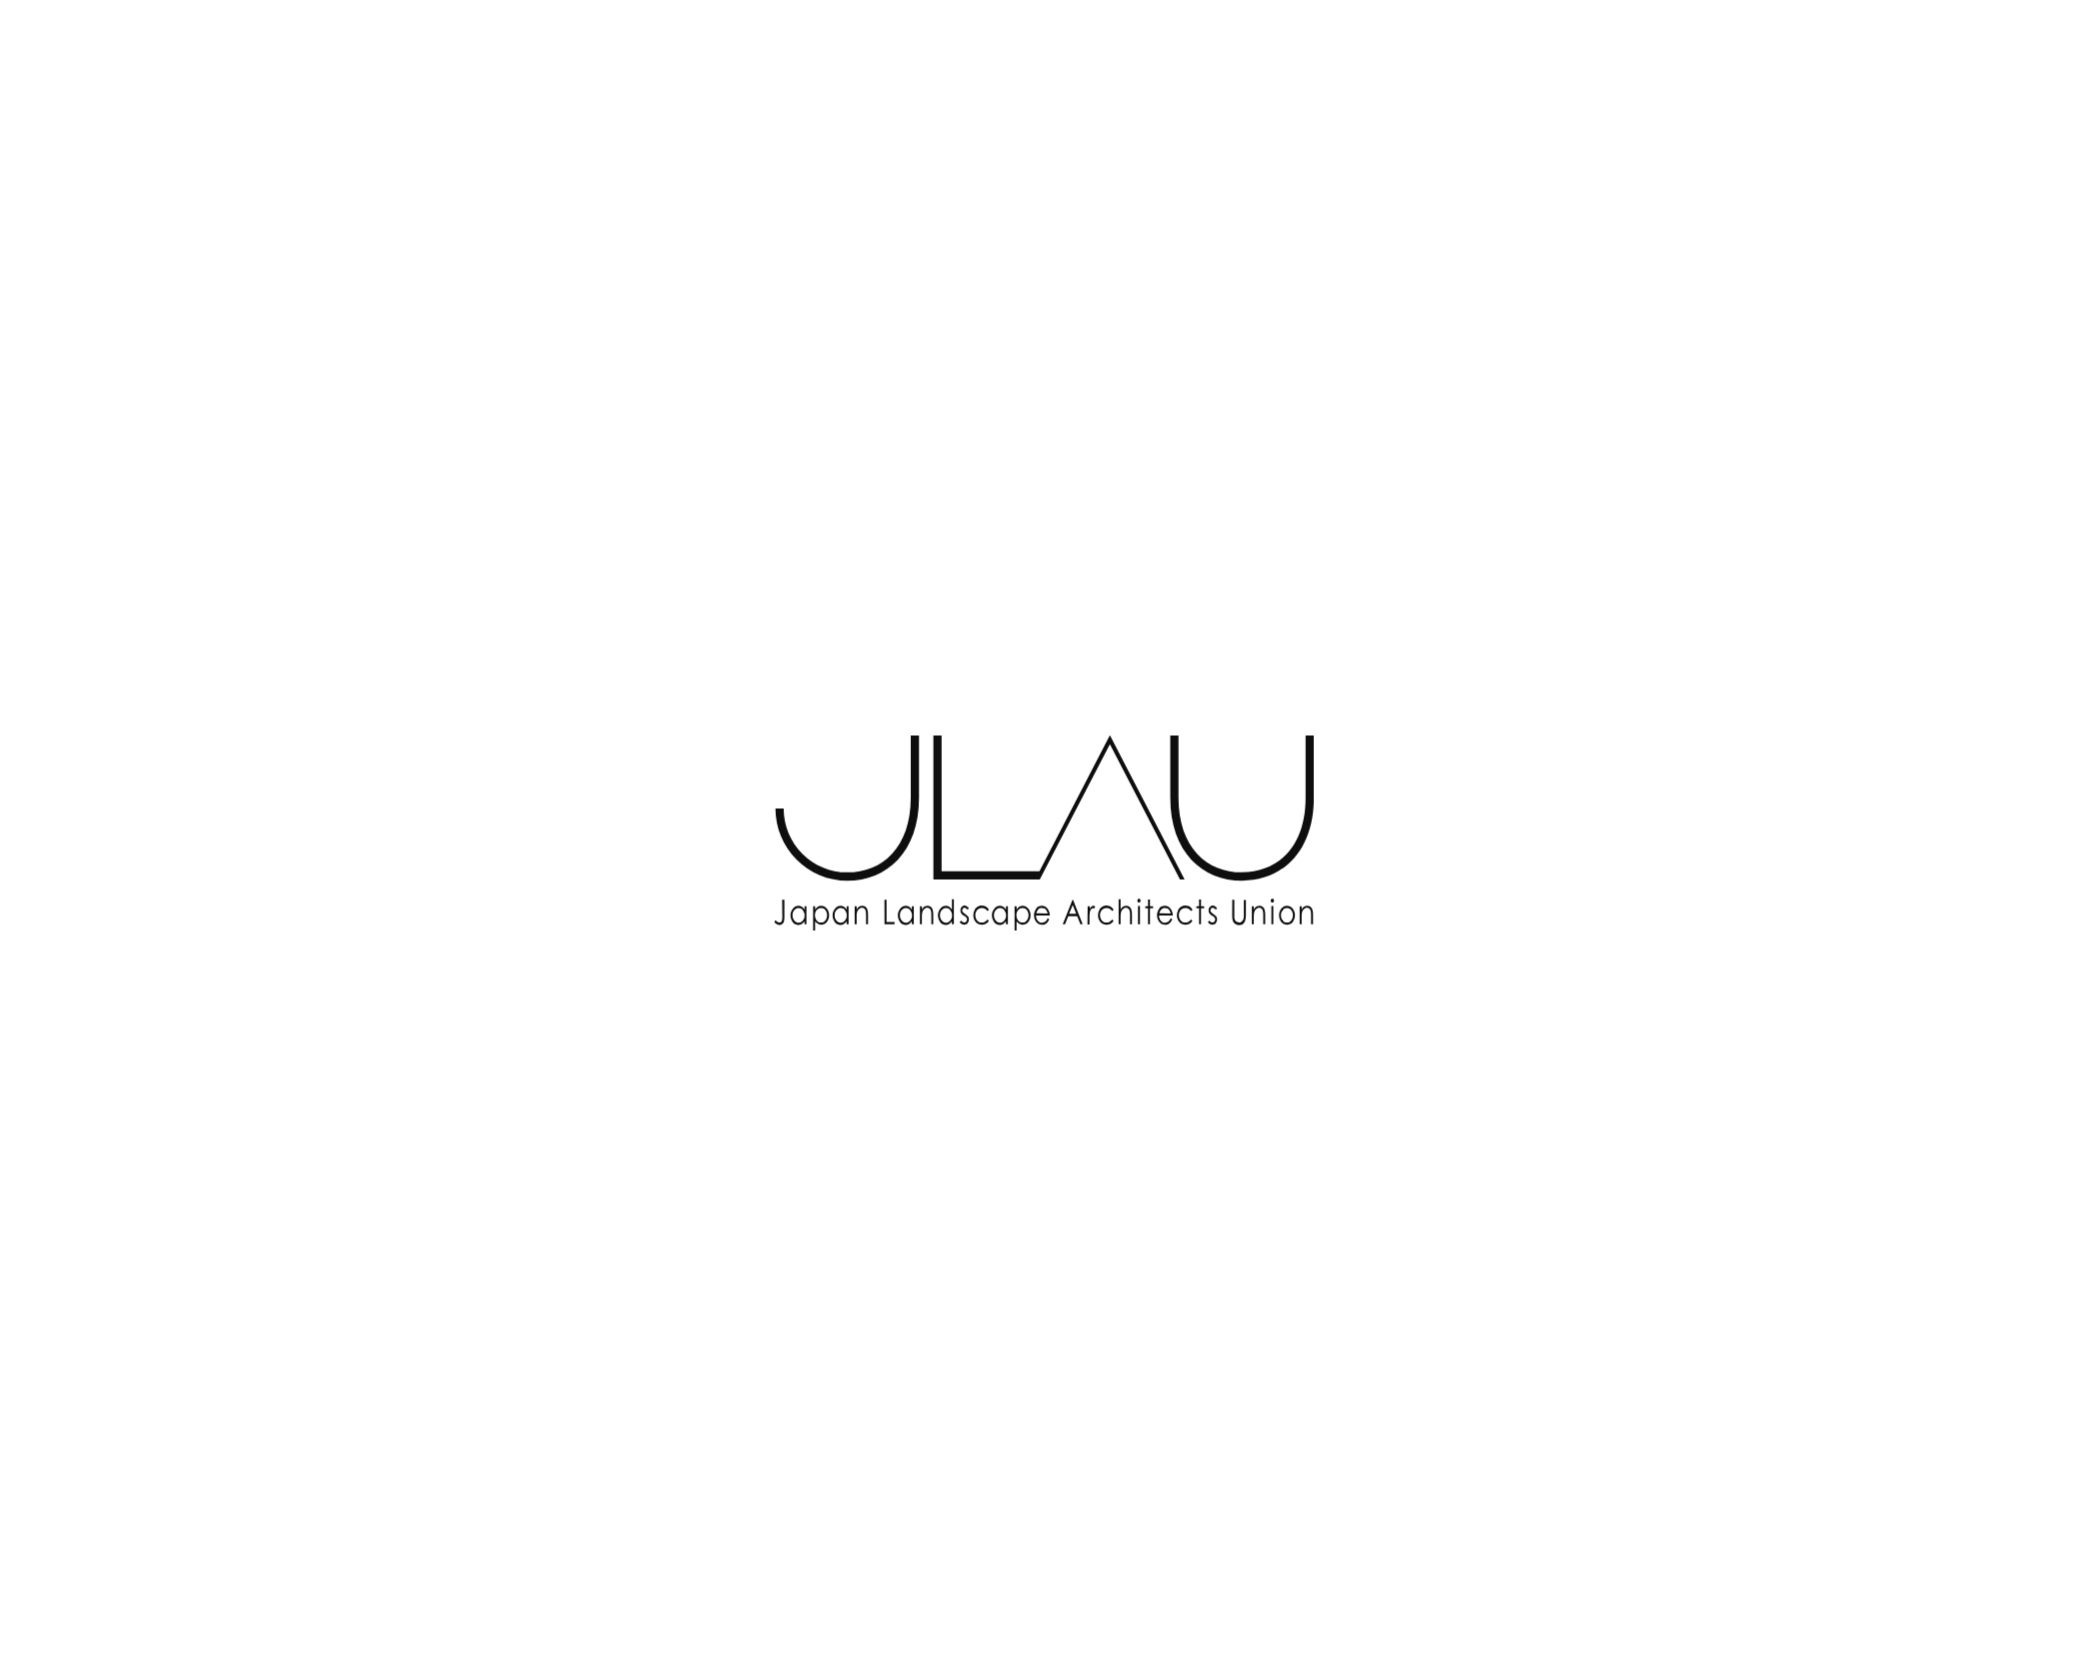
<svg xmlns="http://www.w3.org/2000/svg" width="2084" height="1665">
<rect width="100%" height="100%" fill="#fff"/>
<image href="1.png" x="774" y="735" width="540" height="196"/>
</svg>
